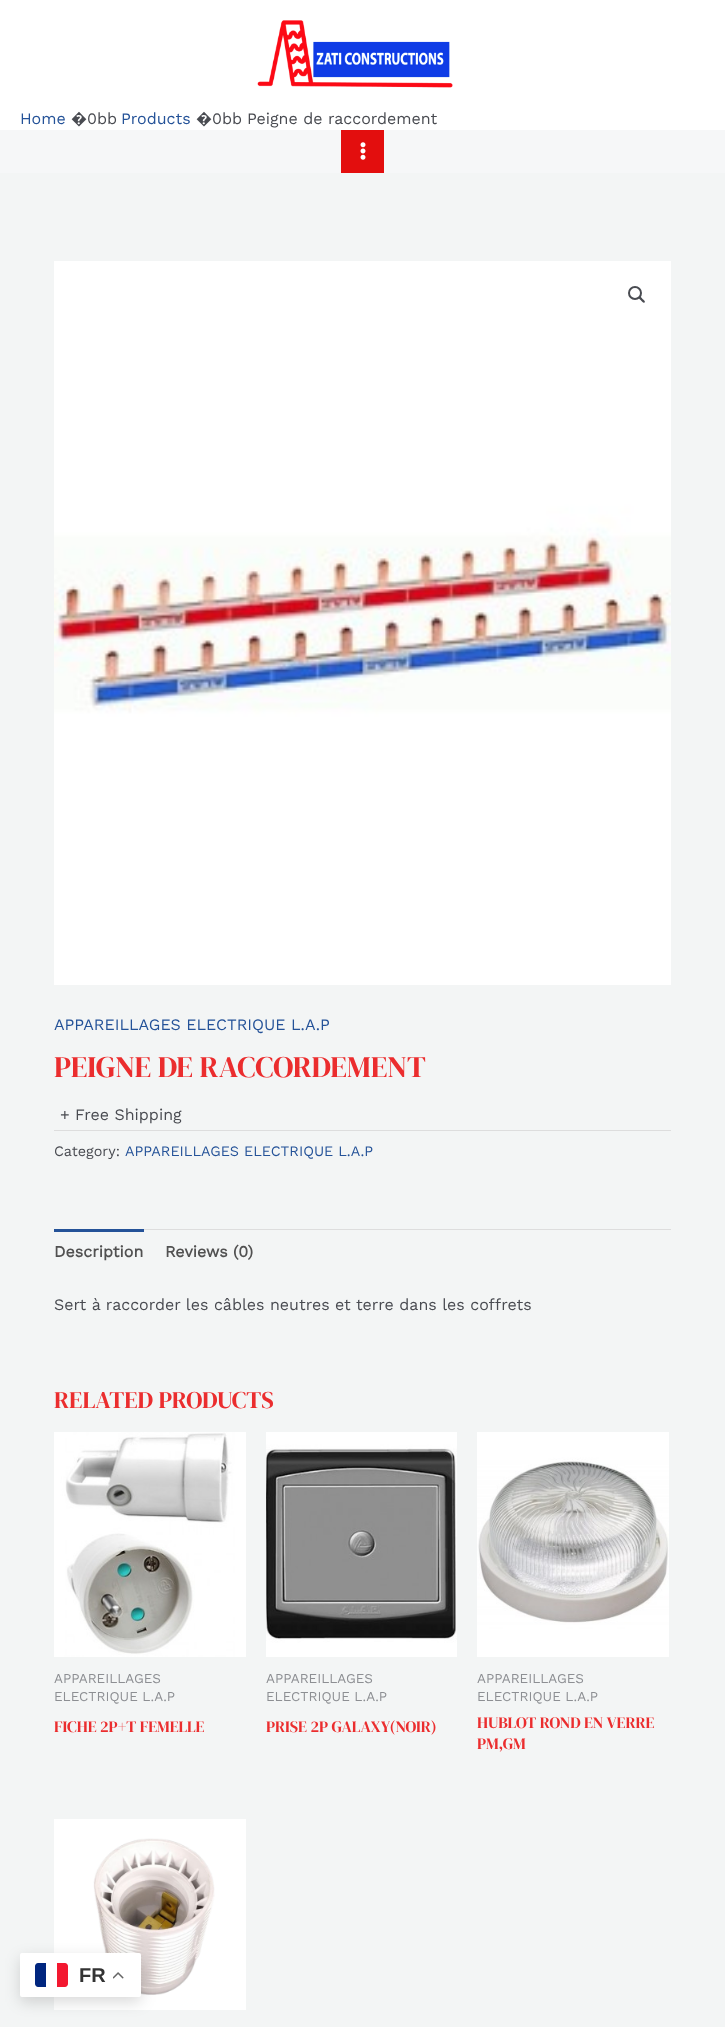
<svg xmlns="http://www.w3.org/2000/svg" width="725" height="2027">
<style>
.a{font:16px Work Sans;fill:#245298}
.b{font:16px Noto Sans;fill:#494b51}
.c{font:16px Work Sans;fill:#494b51}
.d{font:30px DM Serif Display;fill:#eb2d2e}
.e{font:14.4px Work Sans;fill:#494b51}
.f{font:14.4px Work Sans;fill:#245298}
.g{font:bold 16px Work Sans;fill:#515151}
.h{font:24px DM Serif Display;fill:#eb2d2e}
.i{font:13.5px Work Sans;fill:#8d8f93}
.j{font:16px DM Serif Display;fill:#eb2d2e}
.k{font:bold 20px Liberation Sans;fill:#333}
</style>
<rect width="100%" height="100%" fill="#f3f5f5"/>
<path fill="#fff" d="M0 0h725v130H0z"/>
<image href="1.png" x="257" y="20" width="196" height="68"/>
<path fill="#f6f7f8" d="M0 130h725v43H0z"/>
<path fill="#e30e0e" d="M341 130h43v43H341z"/>
<image href="2.png" x="360" y="142" width="6" height="18"/>
<image href="3.png" x="54" y="261" width="617" height="724"/>
<circle fill="none" stroke="#494b51" stroke-width="2" cx="635" cy="293" r="6"/>
<path fill="#494b51" d="M639 297c1-1.5 3 1.5 3.5 2c.5 .5 3.5 2.5 2 3.5c-1 1-3-1.5-3.5-2c-.5-1-3.5-2.5-2-3.5z"/>
<path fill="#ddd" d="M54 1130h617v1H54z"/>
<path fill="#ddd" d="M144 1229h527v1H144z"/>
<path fill="#245298" d="M54 1229h90v3H54z"/>
<image href="4.png" x="54" y="1432" width="192" height="225"/>
<image href="5.png" x="266" y="1432" width="191" height="225"/>
<image href="6.png" x="477" y="1432" width="192" height="225"/>
<image href="7.png" x="54" y="1819" width="192" height="191"/>
<rect fill="#00000026" filter="blur(7.5px)" x="20" y="1958" width="121" height="44" rx="2"/>
<rect fill="#fff" x="20" y="1953" width="121" height="44" rx="2"/>
<path fill="#00267f" d="M38 1963h8v24h-8c-1.5 0-3-1.5-3-3v-18c0-1.5 1.5-3 3-3z"/>
<path fill="#f31830" d="M57 1963h8c1.5 0 3 1.5 3 3v18c0 1.5-1.5 3-3 3h-8z"/>
<image href="8.png" x="113" y="1972" width="11" height="7"/>
<text class="a" x="20" y="124">Home</text>
<text class="b" x="71" y="124">�</text>
<text class="c" x="87" y="124">0bb</text>
<text class="a" x="121" y="124">Products</text>
<text class="b" x="196" y="124">�</text>
<text class="c" x="212" y="124">0bb</text>
<text class="c" x="247" y="124">Peigne de raccordement</text>
<text class="a" x="54" y="1030">APPAREILLAGES ELECTRIQUE L.A.P</text>
<text class="d" x="54" y="1077">PEIGNE DE RACCORDEMENT</text>
<text class="c" x="60" y="1120">+ Free Shipping</text>
<text class="e" x="54" y="1156">Category:</text>
<text class="f" x="125" y="1156">APPAREILLAGES ELECTRIQUE L.A.P</text>
<text class="g" x="54" y="1257">Description</text>
<text class="g" x="165" y="1257">Reviews (0)</text>
<text class="c" x="54" y="1310">Sert à raccorder les câbles neutres et terre dans les coffrets</text>
<text class="h" x="54" y="1408">RELATED PRODUCTS</text>
<text class="i" x="54" y="1683">APPAREILLAGES</text>
<text class="i" x="54" y="1701">ELECTRIQUE L.A.P</text>
<text class="j" x="54" y="1732">FICHE 2P+T FEMELLE</text>
<text class="i" x="266" y="1683">APPAREILLAGES</text>
<text class="i" x="266" y="1701">ELECTRIQUE L.A.P</text>
<text class="j" x="266" y="1732">PRISE 2P GALAXY(NOIR)</text>
<text class="i" x="477" y="1683">APPAREILLAGES</text>
<text class="i" x="477" y="1701">ELECTRIQUE L.A.P</text>
<text class="j" x="477" y="1728">HUBLOT ROND EN VERRE</text>
<text class="j" x="477" y="1749">PM,GM</text>
<text class="k" x="79" y="1982">FR</text>
</svg>
